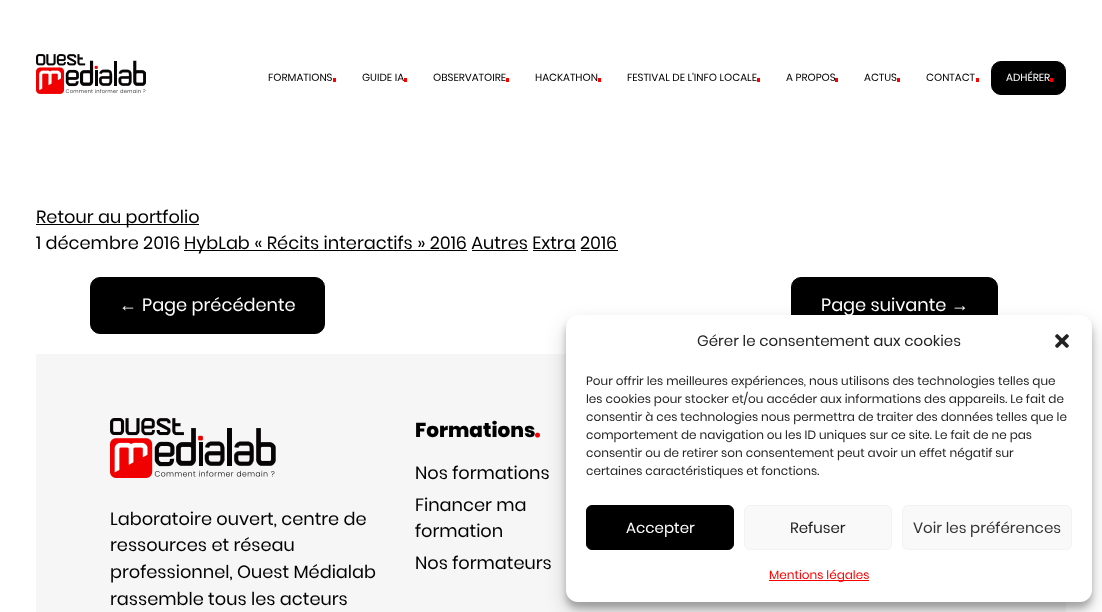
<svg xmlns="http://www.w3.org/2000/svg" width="1102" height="612">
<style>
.a{font:10.4px Poppins;fill:#000}
.b{font:10.4px Poppins;fill:#fff}
.c{font:17.75px Poppins;fill:#000}
.d{font:17.75px Liberation Serif;fill:#fff}
.e{font:17.75px Poppins;fill:#fff}
.f{font:800 20px Poppins;fill:#000}
.g{font:15px Poppins;fill:#222}
.h{font:12px Poppins;fill:#222}
.i{font:15px Poppins;fill:#fff}
.j{font:15px Poppins;fill:#333}
.k{font:12px Poppins;fill:#f00}
</style>
<rect width="100%" height="100%" fill="#fff"/>
<image href="1.png" x="36" y="54" width="110" height="40"/>
<path fill="#f00" d="M333 78h3v4H333z"/>
<path fill="#f00" d="M404 78h3v4H404z"/>
<path fill="#f00" d="M506 78h3v4H506z"/>
<path fill="#f00" d="M598 78h3v4H598z"/>
<path fill="#f00" d="M757 78h3v4H757z"/>
<path fill="#f00" d="M835 78h3v4H835z"/>
<path fill="#f00" d="M897 78h3v4H897z"/>
<path fill="#f00" d="M976 78h3v4H976z"/>
<rect fill="#000" stroke="#000" x="991.5" y="61.5" width="74" height="33" rx="9.5"/>
<path fill="#f00" d="M1050 78h3v4H1050z"/>
<path fill="#000" d="M36 224h163v1H36z"/>
<path fill="#000" d="M184 250h283v1H184z"/>
<path fill="#000" d="M472 250h56v1H472z"/>
<path fill="#000" d="M533 250h43v1H533z"/>
<path fill="#000" d="M581 250h37v1H581z"/>
<rect fill="#000" stroke="#000" x="90.5" y="277.5" width="234" height="56" rx="9.5"/>
<rect fill="#000" stroke="#000" x="791.5" y="277.5" width="206" height="56" rx="9.5"/>
<path fill="#f6f6f6" d="M36 354h1030v258H36z"/>
<image href="2.png" x="110" y="418" width="166" height="60"/>
<image href="3.png" x="535" y="432" width="5" height="6"/>
<rect fill="#0000003b" filter="blur(3px)" x="566" y="321" width="526" height="287" rx="12"/>
<rect fill="#00000030" filter="blur(10px)" x="566" y="325" width="526" height="287" rx="12"/>
<rect fill="#fff" x="566" y="315" width="526" height="287" rx="12"/>
<image href="4.png" x="1055" y="334" width="14" height="14"/>
<rect fill="#000" stroke="#000" x="586.5" y="505.5" width="147" height="44" rx="5.5"/>
<rect fill="#f9f9f9" stroke="#f2f2f2" x="744.5" y="505.5" width="147" height="44" rx="5.5"/>
<rect fill="#f9f9f9" stroke="#f2f2f2" x="902.5" y="505.5" width="169" height="44" rx="5.5"/>
<path fill="#f00" d="M769 580h100v1H769z"/>
<text class="a" x="268" y="81">FORMATIONS</text>
<text class="a" x="362" y="81">GUIDE IA</text>
<text class="a" x="433" y="81">OBSERVATOIRE</text>
<text class="a" x="535" y="81">HACKATHON</text>
<text class="a" x="627" y="81">FESTIVAL DE L’INFO LOCALE</text>
<text class="a" x="786" y="81">A PROPOS</text>
<text class="a" x="864" y="81">ACTUS</text>
<text class="a" x="926" y="81">CONTACT</text>
<text class="b" x="1006" y="81">ADHÉRER</text>
<text class="c" x="36" y="223">Retour au portfolio</text>
<text class="c" x="36" y="249">1 décembre 2016</text>
<text class="c" x="184" y="249">HybLab « Récits interactifs » 2016 Autres Extra 2016</text>
<text class="d" x="119" y="311">←</text>
<text class="e" x="142" y="311">Page précédente</text>
<text class="e" x="821" y="311">Page suivante</text>
<text class="d" x="951" y="311">→</text>
<text class="c" x="110" y="525">Laboratoire ouvert, centre de</text>
<text class="c" x="110" y="551">ressources et réseau</text>
<text class="c" x="110" y="578">professionnel, Ouest Médialab</text>
<text class="c" x="110" y="605">rassemble tous les acteurs</text>
<text class="f" x="415" y="437">Formations</text>
<text class="c" x="415" y="479">Nos formations</text>
<text class="c" x="415" y="511">Financer ma</text>
<text class="c" x="415" y="537">formation</text>
<text class="c" x="415" y="569">Nos formateurs</text>
<text class="g" x="697" y="346">Gérer le consentement aux cookies</text>
<text class="h" x="586" y="385">Pour offrir les meilleures expériences, nous utilisons des technologies telles que</text>
<text class="h" x="586" y="403">les cookies pour stocker et/ou accéder aux informations des appareils. Le fait de</text>
<text class="h" x="586" y="421">consentir à ces technologies nous permettra de traiter des données telles que le</text>
<text class="h" x="586" y="439">comportement de navigation ou les ID uniques sur ce site. Le fait de ne pas</text>
<text class="h" x="586" y="457">consentir ou de retirer son consentement peut avoir un effet négatif sur</text>
<text class="h" x="586" y="475">certaines caractéristiques et fonctions.</text>
<text class="i" x="626" y="533">Accepter</text>
<text class="g" x="790" y="533">Refuser</text>
<text class="j" x="913" y="533">Voir les préférences</text>
<text class="k" x="769" y="579">Mentions légales</text>
</svg>
